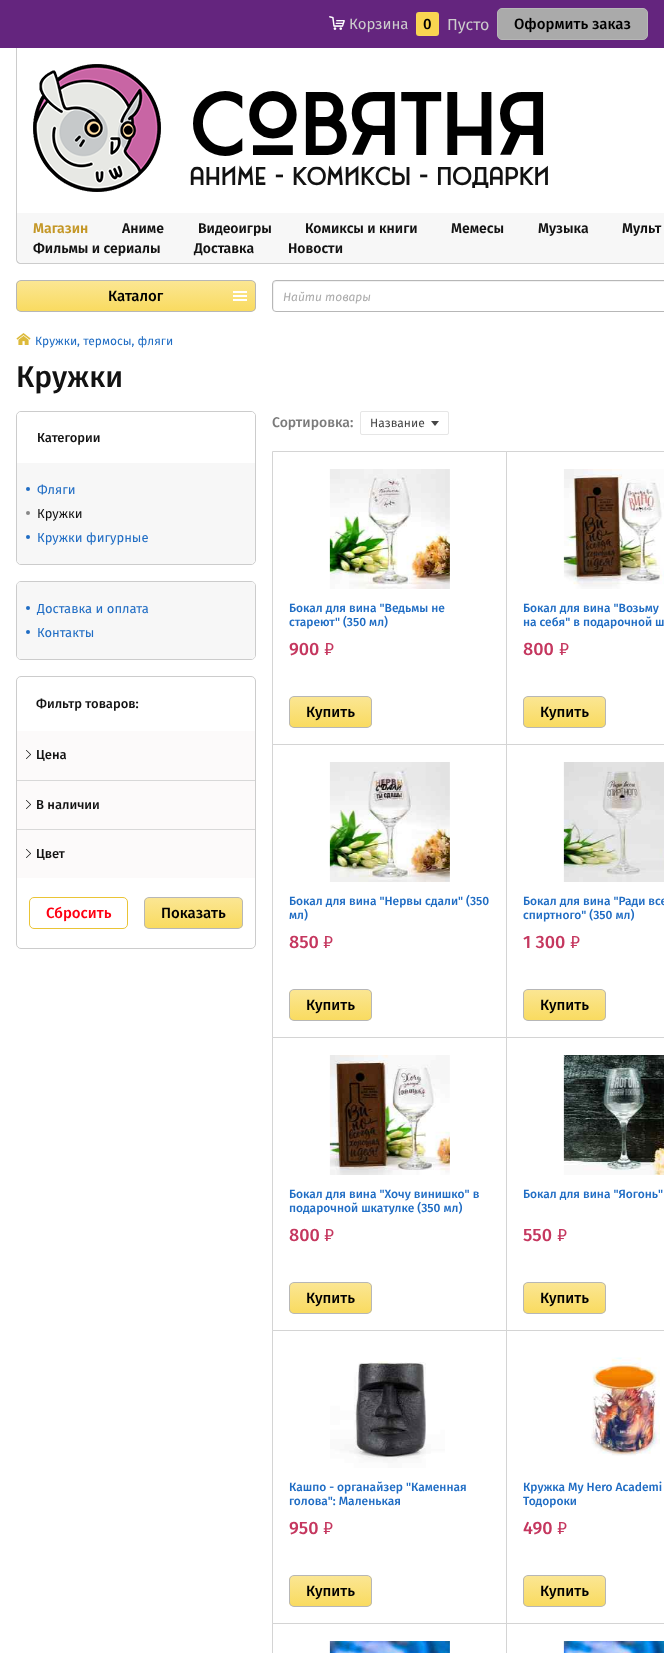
<svg xmlns="http://www.w3.org/2000/svg" width="664" height="1653">
<style>
.a{font:15px Fira Sans;fill:#ccc}
.b{font:500 15px Fira Sans;fill:#000}
.c{font:16px Fira Sans;fill:#ccc}
.d{font:bold 80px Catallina;fill:#000}
.e{font:bold 23px Catallina;fill:#121212}
.f{font:600 14px Fira Sans;fill:#c49726}
.g{font:600 14px Fira Sans;fill:#121212}
.h{font:italic 12px Fira Sans;fill:#aaa}
.i{font:12px Fira Sans;fill:#206dc4}
.j{font:500 30px Fira Sans;fill:#121212}
.k{font:500 13px Fira Sans;fill:#121212}
.l{font:13px Fira Sans;fill:#206dc4}
.m{font:13px Fira Sans;fill:#121212}
.n{font:500 15px Fira Sans;fill:#ff0012}
.o{font:500 14px Fira Sans;fill:#7b7b7b}
.p{font:12px Fira Sans;fill:#464646}
.q{font:500 12px Fira Sans;fill:#206dc4}
.r{font:500 18px Fira Sans;fill:#c5375f}
.s{font:18px Fira Sans;fill:#c5375f}
</style>
<defs>
<clipPath id="clip1"><rect x="16" y="280" width="240" height="32" rx="5"/></clipPath>
<linearGradient id="g1" gradientUnits="userSpaceOnUse" x1="136" y1="281" x2="136" y2="311"><stop offset="0" stop-color="#fbe693"/><stop offset="1" stop-color="#f9db60"/></linearGradient>
<clipPath id="clip2"><rect x="144" y="897" width="99" height="32" rx="5"/></clipPath>
<linearGradient id="g2" gradientUnits="userSpaceOnUse" x1="194" y1="898" x2="194" y2="928"><stop offset="0" stop-color="#fbe693"/><stop offset="1" stop-color="#f9db60"/></linearGradient>
<clipPath id="clip3"><rect x="289" y="696" width="83" height="32" rx="5"/></clipPath>
<linearGradient id="g3" gradientUnits="userSpaceOnUse" x1="331" y1="697" x2="331" y2="727"><stop offset="0" stop-color="#fbe693"/><stop offset="1" stop-color="#f9db60"/></linearGradient>
<clipPath id="clip4"><rect x="523" y="696" width="83" height="32" rx="5"/></clipPath>
<linearGradient id="g4" gradientUnits="userSpaceOnUse" x1="565" y1="697" x2="565" y2="727"><stop offset="0" stop-color="#fbe693"/><stop offset="1" stop-color="#f9db60"/></linearGradient>
<clipPath id="clip5"><rect x="289" y="989" width="83" height="32" rx="5"/></clipPath>
<linearGradient id="g5" gradientUnits="userSpaceOnUse" x1="331" y1="990" x2="331" y2="1020"><stop offset="0" stop-color="#fbe693"/><stop offset="1" stop-color="#f9db60"/></linearGradient>
<clipPath id="clip6"><rect x="523" y="989" width="83" height="32" rx="5"/></clipPath>
<linearGradient id="g6" gradientUnits="userSpaceOnUse" x1="565" y1="990" x2="565" y2="1020"><stop offset="0" stop-color="#fbe693"/><stop offset="1" stop-color="#f9db60"/></linearGradient>
<clipPath id="clip7"><rect x="289" y="1282" width="83" height="32" rx="5"/></clipPath>
<linearGradient id="g7" gradientUnits="userSpaceOnUse" x1="331" y1="1283" x2="331" y2="1313"><stop offset="0" stop-color="#fbe693"/><stop offset="1" stop-color="#f9db60"/></linearGradient>
<clipPath id="clip8"><rect x="523" y="1282" width="83" height="32" rx="5"/></clipPath>
<linearGradient id="g8" gradientUnits="userSpaceOnUse" x1="565" y1="1283" x2="565" y2="1313"><stop offset="0" stop-color="#fbe693"/><stop offset="1" stop-color="#f9db60"/></linearGradient>
<clipPath id="clip9"><rect x="289" y="1575" width="83" height="32" rx="5"/></clipPath>
<linearGradient id="g9" gradientUnits="userSpaceOnUse" x1="331" y1="1576" x2="331" y2="1606"><stop offset="0" stop-color="#fbe693"/><stop offset="1" stop-color="#f9db60"/></linearGradient>
<clipPath id="clip10"><rect x="523" y="1575" width="83" height="32" rx="5"/></clipPath>
<linearGradient id="g10" gradientUnits="userSpaceOnUse" x1="565" y1="1576" x2="565" y2="1606"><stop offset="0" stop-color="#fbe693"/><stop offset="1" stop-color="#f9db60"/></linearGradient>
</defs>
<rect width="100%" height="100%" fill="#fff"/>
<path fill="#64257e" d="M0 0h664v48H0z"/>
<image href="1.png" x="329" y="16" width="16" height="14"/>
<rect fill="#f9d550" x="416" y="12" width="23" height="24" rx="3"/>
<path fill="none" stroke="#ffffff0d" d="M416.5 12.5h22v23H416.5z"/>
<rect fill="#aaa" stroke="#b7b7b7" x="497.5" y="8.5" width="150" height="31" rx="4.5"/>
<path fill="#ccc" fill-rule="evenodd" d="M16 48h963v211c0 3-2 5-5 5h-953c-3 0-5-2-5-5zm1 0h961v211c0 2-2 4-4 4h-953c-2 0-4-2-4-4z"/>
<image href="2.png" x="33" y="64" width="128" height="128"/>
<path fill="#f7f7f7" d="M17 213h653v44c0 3.5-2.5 6-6 6h-641c-3.5 0-6-2.5-6-6z"/>
<g clip-path="url(#clip1)">
<path fill="url(#g1)" d="M16 281h240v30H16z"/>
</g>
<rect fill="none" stroke="#b7b7b7" x="16.5" y="280.5" width="239" height="31" rx="4.5"/>
<path fill="#fff" d="M233 291h14v2H233z"/>
<path fill="#fff" d="M233 295h14v2H233z"/>
<path fill="#fff" d="M233 299h14v2H233z"/>
<path fill="#f2f2f2" d="M277 282h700l-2-1h-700c-3 1-2 5-2 7v8c0 3-1 13 1 14v-21c0-3-1-7 3-7z"/>
<rect fill="none" stroke="#b7b7b7" x="272.5" y="280.5" width="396" height="31" rx="3.5"/>
<image href="3.png" x="16" y="333" width="15" height="12"/>
<rect fill="none" stroke="#ccc" x="16.5" y="411.5" width="239" height="153" rx="4.5"/>
<path fill="#fff" d="M21 412h230c2 0 4 2 4 4v47h-238v-47c0-2 2-4 4-4z"/>
<path fill="#f7f7f7" d="M17 463h238v97c0 2-2 4-4 4h-230c-2 0-4-2-4-4z"/>
<circle fill="#206dc4" cx="28" cy="489" r="2"/>
<circle fill="#888" cx="28" cy="513" r="2"/>
<circle fill="#206dc4" cx="28" cy="537" r="2"/>
<rect fill="none" stroke="#ccc" x="16.5" y="581.5" width="239" height="78" rx="4.5"/>
<rect fill="#f7f7f7" x="17" y="582" width="238" height="77" rx="4"/>
<circle fill="#206dc4" cx="28" cy="608" r="2"/>
<circle fill="#206dc4" cx="28" cy="632" r="2"/>
<rect fill="none" stroke="#ccc" x="16.5" y="676.5" width="239" height="272" rx="4.5"/>
<path fill="#fcfafa" d="M17 731h238v49H17z"/>
<image href="4.png" x="26" y="750" width="5" height="9"/>
<path fill="#fcfafa" d="M17 781h238v48H17z"/>
<path fill="#d8d8d8" d="M17 780h238v1H17z"/>
<image href="4.png" x="26" y="800" width="5" height="9"/>
<path fill="#fcfafa" d="M17 830h238v48H17z"/>
<path fill="#d8d8d8" d="M17 829h238v1H17z"/>
<image href="4.png" x="26" y="849" width="5" height="9"/>
<rect fill="none" stroke="#eac436" x="29.5" y="897.5" width="98" height="31" rx="4.5"/>
<g clip-path="url(#clip2)">
<path fill="url(#g2)" d="M144 898h99v30H144z"/>
</g>
<rect fill="none" stroke="#b7b7b7" x="144.5" y="897.5" width="98" height="31" rx="4.5"/>
<rect fill="none" stroke="#e6e6e6" x="360.5" y="411.5" width="88" height="23" rx="1.5"/>
<path fill="#464646" d="M431 421h8l-4 5z"/>
<path fill="none" stroke="#d4d4d4" d="M272.5 451.5h234v293H272.5z"/>
<image href="5.png" x="329" y="469" width="121" height="120"/>
<g clip-path="url(#clip3)">
<path fill="url(#g3)" d="M289 697h83v30H289z"/>
</g>
<rect fill="none" stroke="#b7b7b7" x="289.5" y="696.5" width="82" height="31" rx="4.5"/>
<path fill="none" stroke="#d4d4d4" d="M506.5 451.5h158v293H506.5z"/>
<image href="6.png" x="563" y="469" width="101" height="120"/>
<g clip-path="url(#clip4)">
<path fill="url(#g4)" d="M523 697h83v30H523z"/>
</g>
<rect fill="none" stroke="#b7b7b7" x="523.5" y="696.5" width="82" height="31" rx="4.5"/>
<path fill="none" stroke="#d4d4d4" d="M272.5 744.5h234v293H272.5z"/>
<image href="7.png" x="329" y="762" width="121" height="120"/>
<g clip-path="url(#clip5)">
<path fill="url(#g5)" d="M289 990h83v30H289z"/>
</g>
<rect fill="none" stroke="#b7b7b7" x="289.5" y="989.5" width="82" height="31" rx="4.5"/>
<path fill="none" stroke="#d4d4d4" d="M506.5 744.5h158v293H506.5z"/>
<image href="8.png" x="563" y="762" width="101" height="120"/>
<g clip-path="url(#clip6)">
<path fill="url(#g6)" d="M523 990h83v30H523z"/>
</g>
<rect fill="none" stroke="#b7b7b7" x="523.5" y="989.5" width="82" height="31" rx="4.5"/>
<path fill="none" stroke="#d4d4d4" d="M272.5 1037.5h234v293H272.5z"/>
<image href="9.png" x="329" y="1055" width="121" height="120"/>
<g clip-path="url(#clip7)">
<path fill="url(#g7)" d="M289 1283h83v30H289z"/>
</g>
<rect fill="none" stroke="#b7b7b7" x="289.5" y="1282.5" width="82" height="31" rx="4.5"/>
<path fill="none" stroke="#d4d4d4" d="M506.5 1037.5h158v293H506.5z"/>
<image href="10.png" x="563" y="1055" width="101" height="120"/>
<g clip-path="url(#clip8)">
<path fill="url(#g8)" d="M523 1283h83v30H523z"/>
</g>
<rect fill="none" stroke="#b7b7b7" x="523.5" y="1282.5" width="82" height="31" rx="4.5"/>
<path fill="none" stroke="#d4d4d4" d="M272.5 1330.5h234v293H272.5z"/>
<image href="11.png" x="330" y="1361" width="115" height="107"/>
<g clip-path="url(#clip9)">
<path fill="url(#g9)" d="M289 1576h83v30H289z"/>
</g>
<rect fill="none" stroke="#b7b7b7" x="289.5" y="1575.5" width="82" height="31" rx="4.5"/>
<path fill="none" stroke="#d4d4d4" d="M506.5 1330.5h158v293H506.5z"/>
<image href="12.png" x="591" y="1357" width="69" height="99"/>
<g clip-path="url(#clip10)">
<path fill="url(#g10)" d="M523 1576h83v30H523z"/>
</g>
<rect fill="none" stroke="#b7b7b7" x="523.5" y="1575.5" width="82" height="31" rx="4.5"/>
<path fill="none" stroke="#d4d4d4" d="M272.5 1623.5h234v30H272.5z"/>
<image href="13.png" x="329" y="1641" width="121" height="12"/>
<image href="14.png" x="563" y="1641" width="101" height="12"/>
<text class="a" x="349" y="29">Корзина</text>
<text class="b" x="423" y="29">0</text>
<text class="c" x="447" y="30">Пусто</text>
<text class="b" x="514" y="29">Оформить заказ</text>
<text class="d" x="189" y="155">совятня</text>
<text class="e" x="189" y="185">аниме - кОмиксы - пОдарки</text>
<text class="f" x="33" y="233">Магазин</text>
<text class="g" x="122" y="233">Аниме</text>
<text class="g" x="198" y="233">Видеоигры</text>
<text class="g" x="305" y="233">Комиксы и книги</text>
<text class="g" x="451" y="233">Мемесы</text>
<text class="g" x="538" y="233">Музыка</text>
<text class="g" x="622" y="233">Мульт</text>
<text class="g" x="33" y="253">Фильмы и сериалы</text>
<text class="g" x="194" y="253">Доставка</text>
<text class="g" x="288" y="253">Новости</text>
<text class="b" x="108" y="301">Каталог</text>
<text class="h" x="283" y="301">Найти товары</text>
<text class="i" x="35" y="345">Кружки, термосы, фляги</text>
<text class="j" x="16" y="387">Кружки</text>
<text class="k" x="37" y="442">Категории</text>
<text class="l" x="37" y="494">Фляги</text>
<text class="m" x="37" y="518">Кружки</text>
<text class="l" x="37" y="542">Кружки фигурные</text>
<text class="l" x="37" y="613">Доставка и оплата</text>
<text class="l" x="37" y="637">Контакты</text>
<text class="k" x="36" y="708">Фильтр товаров:</text>
<text class="k" x="36" y="759">Цена</text>
<text class="k" x="36" y="809">В наличии</text>
<text class="k" x="36" y="858">Цвет</text>
<text class="n" x="46" y="918">Сбросить</text>
<text class="b" x="161" y="918">Показать</text>
<text class="o" x="272" y="427">Сортировка:</text>
<text class="p" x="370" y="427">Название</text>
<text class="q" x="289" y="612">Бокал для вина "Ведьмы не</text>
<text class="q" x="289" y="626">стареют" (350 мл)</text>
<text class="r" x="289" y="655">900</text>
<text class="s" x="324" y="655">₽</text>
<text class="b" x="306" y="717">Купить</text>
<text class="q" x="523" y="612">Бокал для вина "Возьму</text>
<text class="q" x="523" y="626">на себя" в подарочной ш</text>
<text class="r" x="523" y="655">800</text>
<text class="s" x="559" y="655">₽</text>
<text class="b" x="540" y="717">Купить</text>
<text class="q" x="289" y="905">Бокал для вина "Нервы сдали" (350</text>
<text class="q" x="289" y="919">мл)</text>
<text class="r" x="289" y="948">850</text>
<text class="s" x="323" y="948">₽</text>
<text class="b" x="306" y="1010">Купить</text>
<text class="q" x="523" y="905">Бокал для вина "Ради все</text>
<text class="q" x="523" y="919">спиртного" (350 мл)</text>
<text class="r" x="523" y="948">1 300</text>
<text class="s" x="570" y="948">₽</text>
<text class="b" x="540" y="1010">Купить</text>
<text class="q" x="289" y="1198">Бокал для вина "Хочу винишко" в</text>
<text class="q" x="289" y="1212">подарочной шкатулке (350 мл)</text>
<text class="r" x="289" y="1241">800</text>
<text class="s" x="324" y="1241">₽</text>
<text class="b" x="306" y="1303">Купить</text>
<text class="q" x="523" y="1198">Бокал для вина "Яогонь"</text>
<text class="r" x="523" y="1241">550</text>
<text class="s" x="557" y="1241">₽</text>
<text class="b" x="540" y="1303">Купить</text>
<text class="q" x="289" y="1491">Кашпо - органайзер "Каменная</text>
<text class="q" x="289" y="1505">голова": Маленькая</text>
<text class="r" x="289" y="1534">950</text>
<text class="s" x="323" y="1534">₽</text>
<text class="b" x="306" y="1596">Купить</text>
<text class="q" x="523" y="1491">Кружка My Hero Academi</text>
<text class="q" x="523" y="1505">Тодороки</text>
<text class="r" x="523" y="1534">490</text>
<text class="s" x="557" y="1534">₽</text>
<text class="b" x="540" y="1596">Купить</text>
</svg>
